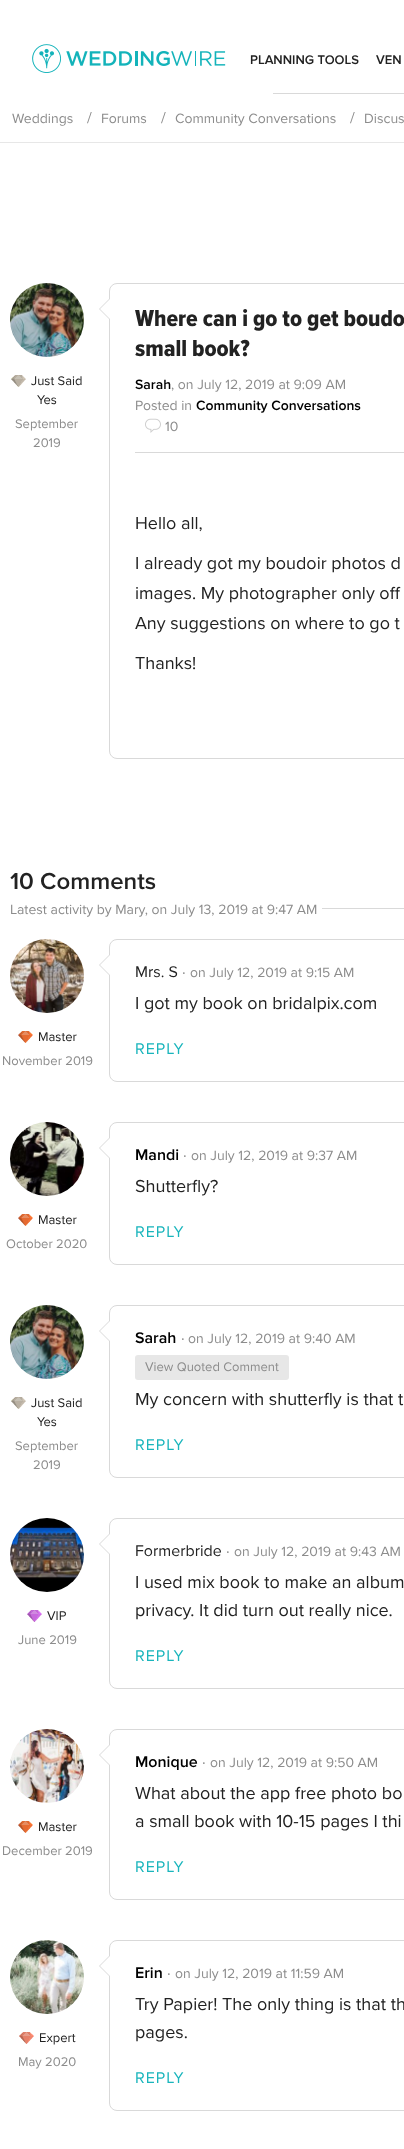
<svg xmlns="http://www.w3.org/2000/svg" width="404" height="2149">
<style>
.a{font:600 13px Proxima Nova;fill:#222}
.b{font:14px Proxima Nova;fill:#8c8c8c}
.c{font:16px Proxima Nova;fill:#8c8c8c}
.d{font:13px Proxima Nova;fill:#222}
.e{font:13px Proxima Nova;fill:#8c8c8c}
.f{font:800 24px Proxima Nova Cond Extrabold;fill:#222}
.g{font:600 14px Proxima Nova;fill:#000}
.h{font:18px Proxima Nova;fill:#222}
.i{font:600 24px Proxima Nova;fill:#222}
.j{font:16px Proxima Nova;fill:#222}
.k{font:16px Proxima Nova;letter-spacing:1px;fill:#19b5bc}
.l{font:600 16px Proxima Nova;fill:#000}
</style>
<rect width="100%" height="100%" fill="#fff"/>
<image href="1.png" x="32" y="44" width="194" height="29"/>
<path fill="#d9d9d9" d="M273 93h131v1H273z"/>
<path fill="#e7e7e7" d="M0 142h404v1H0z"/>
<image href="2.png" x="10" y="283" width="74" height="74"/>
<image href="3.png" x="11" y="375" width="15" height="12"/>
<rect fill="none" stroke="#d9d9d9" x="109.5" y="283.5" width="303" height="475" rx="7.5"/>
<path fill="#d9d9d9" d="M109 299v20l-10-10z"/>
<path fill="#fff" d="M110 299v20l-10-10z"/>
<image href="4.png" x="145" y="418" width="16" height="15"/>
<path fill="#d9d9d9" d="M135 452h269v1H135z"/>
<path fill="#d9d9d9" d="M322 908h82v1H322z"/>
<image href="5.png" x="10" y="939" width="74" height="74"/>
<image href="6.png" x="18" y="1031" width="15" height="12"/>
<rect fill="none" stroke="#d9d9d9" x="109.5" y="939.5" width="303" height="142" rx="7.5"/>
<path fill="#d9d9d9" d="M109 955v20l-10-10z"/>
<path fill="#fff" d="M110 955v20l-10-10z"/>
<image href="7.png" x="10" y="1122" width="74" height="74"/>
<image href="6.png" x="18" y="1214" width="15" height="12"/>
<rect fill="none" stroke="#d9d9d9" x="109.5" y="1122.5" width="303" height="142" rx="7.5"/>
<path fill="#d9d9d9" d="M109 1138v20l-10-10z"/>
<path fill="#fff" d="M110 1138v20l-10-10z"/>
<image href="8.png" x="10" y="1305" width="74" height="74"/>
<image href="3.png" x="11" y="1397" width="15" height="12"/>
<rect fill="none" stroke="#d9d9d9" x="109.5" y="1305.5" width="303" height="172" rx="7.5"/>
<path fill="#d9d9d9" d="M109 1321v20l-10-10z"/>
<path fill="#fff" d="M110 1321v20l-10-10z"/>
<rect fill="#e7e7e7" x="135" y="1355" width="154" height="25" rx="3"/>
<image href="9.png" x="10" y="1518" width="74" height="74"/>
<image href="10.png" x="27" y="1610" width="15" height="12"/>
<rect fill="none" stroke="#d9d9d9" x="109.5" y="1518.5" width="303" height="170" rx="7.5"/>
<path fill="#d9d9d9" d="M109 1534v20l-10-10z"/>
<path fill="#fff" d="M110 1534v20l-10-10z"/>
<image href="11.png" x="10" y="1729" width="74" height="74"/>
<image href="6.png" x="18" y="1821" width="15" height="12"/>
<rect fill="none" stroke="#d9d9d9" x="109.5" y="1729.5" width="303" height="170" rx="7.5"/>
<path fill="#d9d9d9" d="M109 1745v20l-10-10z"/>
<path fill="#fff" d="M110 1745v20l-10-10z"/>
<image href="12.png" x="10" y="1940" width="74" height="74"/>
<image href="13.png" x="19" y="2032" width="15" height="12"/>
<rect fill="none" stroke="#d9d9d9" x="109.5" y="1940.5" width="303" height="170" rx="7.5"/>
<path fill="#d9d9d9" d="M109 1956v20l-10-10z"/>
<path fill="#fff" d="M110 1956v20l-10-10z"/>
<text class="a" x="250" y="64">PLANNING TOOLS</text>
<text class="a" x="376" y="64">VEN</text>
<text class="b" x="12" y="123">Weddings</text>
<text class="c" x="87" y="123">/</text>
<text class="b" x="101" y="123">Forums</text>
<text class="c" x="161" y="123">/</text>
<text class="b" x="175" y="123">Community Conversations</text>
<text class="c" x="350" y="123">/</text>
<text class="b" x="364" y="123">Discus</text>
<text class="d" x="31" y="385">Just Said</text>
<text class="d" x="37" y="404">Yes</text>
<text class="e" x="15" y="428">September</text>
<text class="e" x="33" y="447">2019</text>
<text class="f" x="135" y="326">Where can i go to get boudo</text>
<text class="f" x="135" y="356">small book?</text>
<text class="g" x="135" y="389">Sarah</text>
<text class="b" x="171" y="389">, on July 12, 2019 at 9:09 AM</text>
<text class="b" x="135" y="410">Posted in</text>
<text class="g" x="196" y="410">Community Conversations</text>
<text class="b" x="165" y="431">10</text>
<text class="h" x="135" y="529">Hello all,</text>
<text class="h" x="135" y="569">I already got my boudoir photos d</text>
<text class="h" x="135" y="599">images. My photographer only off</text>
<text class="h" x="135" y="629">Any suggestions on where to go t</text>
<text class="h" x="135" y="669">Thanks!</text>
<text class="i" x="10" y="889">10 Comments</text>
<text class="b" x="10" y="914">Latest activity by Mary, on July 13, 2019 at 9:47 AM</text>
<text class="d" x="38" y="1041">Master</text>
<text class="e" x="2" y="1065">November 2019</text>
<text class="j" x="135" y="977">Mrs. S</text>
<text class="c" x="182" y="977">·</text>
<text class="b" x="190" y="977">on July 12, 2019 at 9:15 AM</text>
<text class="h" x="135" y="1009">I got my book on bridalpix.com</text>
<text class="k" x="135" y="1054">REPLY</text>
<text class="d" x="38" y="1224">Master</text>
<text class="e" x="6" y="1248">October 2020</text>
<text class="l" x="135" y="1160">Mandi</text>
<text class="c" x="183" y="1160">·</text>
<text class="b" x="191" y="1160">on July 12, 2019 at 9:37 AM</text>
<text class="h" x="135" y="1192">Shutterfly?</text>
<text class="k" x="135" y="1237">REPLY</text>
<text class="d" x="31" y="1407">Just Said</text>
<text class="d" x="37" y="1426">Yes</text>
<text class="e" x="15" y="1450">September</text>
<text class="e" x="33" y="1469">2019</text>
<text class="l" x="135" y="1343">Sarah</text>
<text class="c" x="181" y="1343">·</text>
<text class="b" x="188" y="1343">on July 12, 2019 at 9:40 AM</text>
<text class="e" x="145" y="1371">View Quoted Comment</text>
<text class="h" x="135" y="1405">My concern with shutterfly is that t</text>
<text class="k" x="135" y="1450">REPLY</text>
<text class="d" x="47" y="1620">VIP</text>
<text class="e" x="18" y="1644">June 2019</text>
<text class="j" x="135" y="1556">Formerbride</text>
<text class="c" x="226" y="1556">·</text>
<text class="b" x="234" y="1556">on July 12, 2019 at 9:43 AM</text>
<text class="h" x="135" y="1588">I used mix book to make an album</text>
<text class="h" x="135" y="1616">privacy. It did turn out really nice.</text>
<text class="k" x="135" y="1661">REPLY</text>
<text class="d" x="38" y="1831">Master</text>
<text class="e" x="2" y="1855">December 2019</text>
<text class="l" x="135" y="1767">Monique</text>
<text class="c" x="202" y="1767">·</text>
<text class="b" x="210" y="1767">on July 12, 2019 at 9:50 AM</text>
<text class="h" x="135" y="1799">What about the app free photo bo</text>
<text class="h" x="135" y="1827">a small book with 10-15 pages I thi</text>
<text class="k" x="135" y="1872">REPLY</text>
<text class="d" x="39" y="2042">Expert</text>
<text class="e" x="18" y="2066">May 2020</text>
<text class="l" x="135" y="1978">Erin</text>
<text class="c" x="167" y="1978">·</text>
<text class="b" x="175" y="1978">on July 12, 2019 at 11:59 AM</text>
<text class="h" x="135" y="2010">Try Papier! The only thing is that th</text>
<text class="h" x="135" y="2038">pages.</text>
<text class="k" x="135" y="2083">REPLY</text>
</svg>
